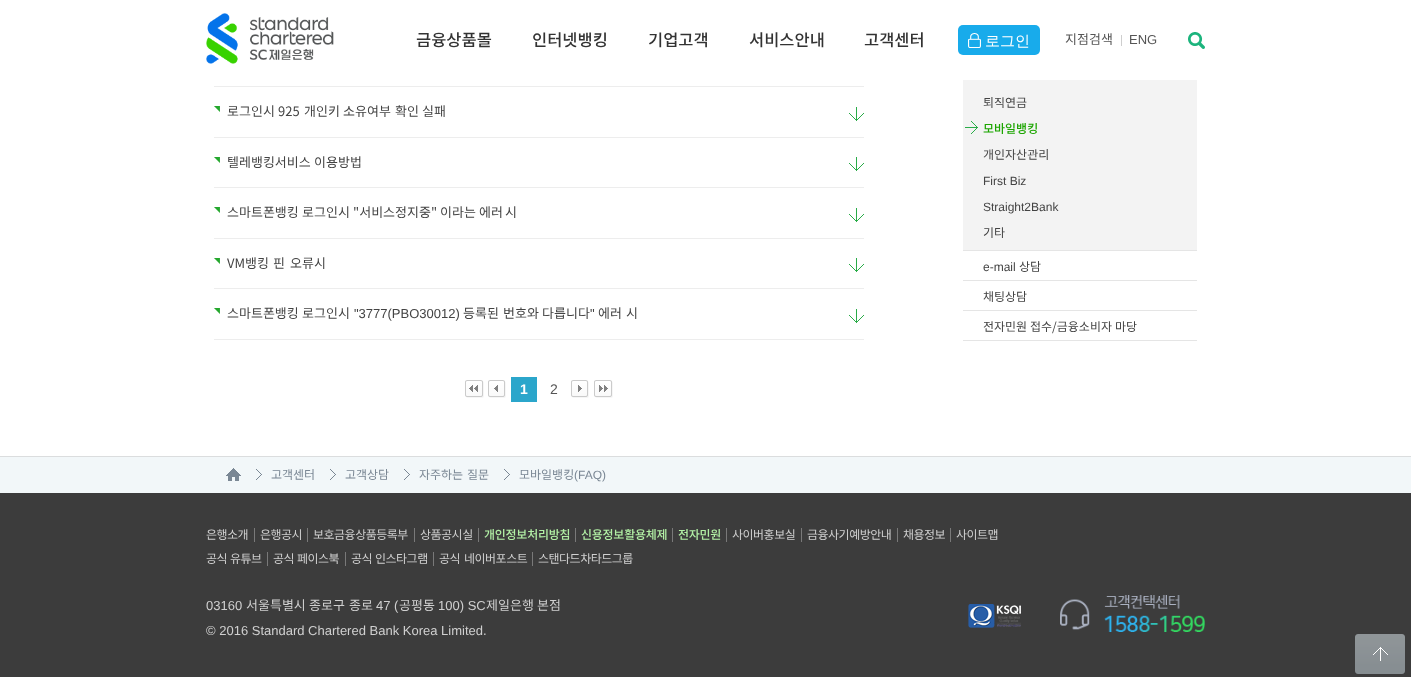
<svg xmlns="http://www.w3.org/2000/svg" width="1411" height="677">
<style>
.a{font:500 16.5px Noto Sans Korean;fill:#333}
.b{font:500 15px WenQuanYi Zen Hei;fill:#fff}
.c{font:13px Noto Sans Korean;fill:#555}
.d{font:13px Liberation Sans;fill:#555}
.e{font:13px Noto Sans Korean;fill:#434343}
.f{font:13px Liberation Sans;fill:#434343}
.g{font:bold 14px Liberation Sans;fill:#fff}
.h{font:14px Liberation Sans;fill:#555}
.i{font:12px Noto Sans Korean;fill:#434343}
.j{font:500 12px Noto Sans Korean;fill:#1ca500}
.k{font:12px Liberation Sans;fill:#434343}
.l{font:12px Noto Sans Korean;fill:#7a8794}
.m{font:12px Liberation Sans;fill:#7a8794}
.n{font:12px Noto Sans Korean;letter-spacing:-0.5px;fill:#d0d0d0}
.o{font:500 12px Noto Sans Korean;letter-spacing:-0.25px;fill:#b2f0a5}
.p{font:13px Liberation Sans;fill:#d0d0d0}
.q{font:13px Noto Sans Korean;fill:#d0d0d0}
</style>
<rect width="100%" height="100%" fill="#fff"/>
<image href="1.png" x="206" y="13" width="128" height="51"/>
<rect fill="#18abeb" x="958" y="25" width="82" height="30" rx="5"/>
<image href="2.png" x="968" y="33" width="13" height="15"/>
<path fill="#cecece" d="M1121 35h1v11H1121z"/>
<image href="3.png" x="1188" y="32" width="17" height="17"/>
<path fill="#ededed" d="M214 86h650v1H214z"/>
<path fill="#ededed" d="M214 137h650v1H214z"/>
<image href="4.png" x="214" y="106" width="6" height="6"/>
<image href="5.png" x="849" y="107" width="15" height="14"/>
<path fill="#ededed" d="M214 187h650v1H214z"/>
<image href="4.png" x="214" y="157" width="6" height="6"/>
<image href="5.png" x="849" y="157" width="15" height="14"/>
<path fill="#ededed" d="M214 238h650v1H214z"/>
<image href="4.png" x="214" y="207" width="6" height="6"/>
<image href="5.png" x="849" y="208" width="15" height="14"/>
<path fill="#ededed" d="M214 288h650v1H214z"/>
<image href="4.png" x="214" y="258" width="6" height="6"/>
<image href="5.png" x="849" y="258" width="15" height="14"/>
<path fill="#ededed" d="M214 339h650v1H214z"/>
<image href="4.png" x="214" y="308" width="6" height="6"/>
<image href="5.png" x="849" y="309" width="15" height="14"/>
<image href="6.png" x="465" y="380" width="19" height="18"/>
<image href="7.png" x="488" y="380" width="18" height="18"/>
<path fill="#2ba6cb" d="M511 377h26v25H511z"/>
<image href="8.png" x="571" y="380" width="18" height="18"/>
<image href="9.png" x="594" y="380" width="19" height="18"/>
<path fill="#e5e5e5" d="M963 250h234v1H963z"/>
<path fill="#f3f3f3" d="M963 80h234v170H963z"/>
<image href="10.png" x="965" y="121" width="13" height="13"/>
<path fill="#e5e5e5" d="M963 280h234v1H963z"/>
<path fill="#e5e5e5" d="M963 310h234v1H963z"/>
<path fill="#e5e5e5" d="M963 340h234v1H963z"/>
<path fill="#f2f7f9" d="M0 457h1411v36H0z"/>
<path fill="#dbddde" d="M0 456h1411v1H0z"/>
<image href="11.png" x="226" y="468" width="15" height="13"/>
<image href="12.png" x="256" y="469" width="6" height="11"/>
<image href="12.png" x="330" y="469" width="6" height="11"/>
<image href="12.png" x="404" y="469" width="6" height="11"/>
<image href="12.png" x="504" y="469" width="6" height="11"/>
<path fill="#3c3c3c" d="M0 493h1411v184H0z"/>
<path fill="#797979" d="M254 528h1v14H254z"/>
<path fill="#797979" d="M307 528h1v14H307z"/>
<path fill="#797979" d="M414 528h1v14H414z"/>
<path fill="#797979" d="M478 528h1v14H478z"/>
<path fill="#797979" d="M575 528h1v14H575z"/>
<path fill="#797979" d="M672 528h1v14H672z"/>
<path fill="#797979" d="M726 528h1v14H726z"/>
<path fill="#797979" d="M801 528h1v14H801z"/>
<path fill="#797979" d="M897 528h1v14H897z"/>
<path fill="#797979" d="M950 528h1v14H950z"/>
<path fill="#797979" d="M267 552h1v14H267z"/>
<path fill="#797979" d="M345 552h1v14H345z"/>
<path fill="#797979" d="M433 552h1v14H433z"/>
<path fill="#797979" d="M532 552h1v14H532z"/>
<image href="13.png" x="968" y="604" width="53" height="24"/>
<image href="14.png" x="1060" y="595" width="145" height="37"/>
<image href="15.png" x="1355" y="634" width="50" height="40"/>
<text class="a" x="416" y="46">금융상품몰</text>
<text class="a" x="532" y="46">인터넷뱅킹</text>
<text class="a" x="648" y="46">기업고객</text>
<text class="a" x="749" y="46">서비스안내</text>
<text class="a" x="864" y="46">고객센터</text>
<text class="b" x="985" y="46">로그인</text>
<text class="c" x="1065" y="44">지점검색</text>
<text class="d" x="1129" y="44">ENG</text>
<text class="e" x="227" y="116">로그인시</text>
<text class="e" x="278" y="116">925</text>
<text class="e" x="304" y="116">개인키</text>
<text class="e" x="343" y="116">소유여부</text>
<text class="e" x="395" y="116">확인</text>
<text class="e" x="422" y="116">실패</text>
<text class="e" x="227" y="167">텔레뱅킹서비스</text>
<text class="e" x="314" y="167">이용방법</text>
<text class="e" x="227" y="217">스마트폰뱅킹</text>
<text class="e" x="302" y="217">로그인시</text>
<text class="e" x="353" y="217">"서비스정지중"</text>
<text class="e" x="440" y="217">이라는</text>
<text class="e" x="479" y="217">에러</text>
<text class="e" x="505" y="217">시</text>
<text class="e" x="227" y="268">VM뱅킹</text>
<text class="e" x="273" y="268">핀</text>
<text class="e" x="290" y="268">오류시</text>
<text class="e" x="227" y="318">스마트폰뱅킹</text>
<text class="e" x="302" y="318">로그인시</text>
<text class="f" x="354" y="318">"3777(PBO30012)</text>
<text class="e" x="463" y="318">등록된</text>
<text class="e" x="503" y="318">번호와</text>
<text class="e" x="542" y="318">다릅니다</text>
<text class="f" x="590" y="318">"</text>
<text class="e" x="598" y="318">에러</text>
<text class="e" x="626" y="318">시</text>
<text class="g" x="520" y="394">1</text>
<text class="h" x="550" y="394">2</text>
<text class="i" x="983" y="107">퇴직연금</text>
<text class="j" x="983" y="133">모바일뱅킹</text>
<text class="i" x="983" y="159">개인자산관리</text>
<text class="k" x="983" y="185">First Biz</text>
<text class="k" x="983" y="211">Straight2Bank</text>
<text class="i" x="983" y="237">기타</text>
<text class="k" x="983" y="271">e-mail</text>
<text class="i" x="1019" y="271">상담</text>
<text class="i" x="983" y="301">채팅상담</text>
<text class="i" x="983" y="331">전자민원</text>
<text class="i" x="1030" y="331">접수/금융소비자</text>
<text class="i" x="1115" y="331">마당</text>
<text class="l" x="271" y="479">고객센터</text>
<text class="l" x="345" y="479">고객상담</text>
<text class="l" x="419" y="479">자주하는</text>
<text class="l" x="467" y="479">질문</text>
<text class="l" x="519" y="479">모바일뱅킹</text>
<text class="m" x="574" y="479">(FAQ)</text>
<text class="n" x="206" y="539">은행소개</text>
<text class="n" x="260" y="539">은행공시</text>
<text class="n" x="313" y="539">보호금융상품등록부</text>
<text class="n" x="420" y="539">상품공시실</text>
<text class="o" x="484" y="539">개인정보처리방침</text>
<text class="o" x="581" y="539">신용정보활용체제</text>
<text class="o" x="678" y="539">전자민원</text>
<text class="n" x="732" y="539">사이버홍보실</text>
<text class="n" x="807" y="539">금융사기예방안내</text>
<text class="n" x="903" y="539">채용정보</text>
<text class="n" x="956" y="539">사이트맵</text>
<text class="n" x="206" y="563">공식</text>
<text class="n" x="230" y="563">유튜브</text>
<text class="n" x="273" y="563">공식</text>
<text class="n" x="297" y="563">페이스북</text>
<text class="n" x="351" y="563">공식</text>
<text class="n" x="375" y="563">인스타그램</text>
<text class="n" x="439" y="563">공식</text>
<text class="n" x="464" y="563">네이버포스트</text>
<text class="n" x="538" y="563">스탠다드차타드그룹</text>
<text class="p" x="206" y="610">03160</text>
<text class="q" x="246" y="610">서울특별시</text>
<text class="q" x="309" y="610">종로구</text>
<text class="q" x="349" y="610">종로</text>
<text class="p" x="376" y="610">47 (</text>
<text class="q" x="399" y="610">공평동</text>
<text class="p" x="438" y="610">100) SC</text>
<text class="q" x="486" y="610">제일은행</text>
<text class="q" x="537" y="610">본점</text>
<text class="p" x="206" y="635">© 2016 Standard Chartered Bank Korea Limited.</text>
</svg>
